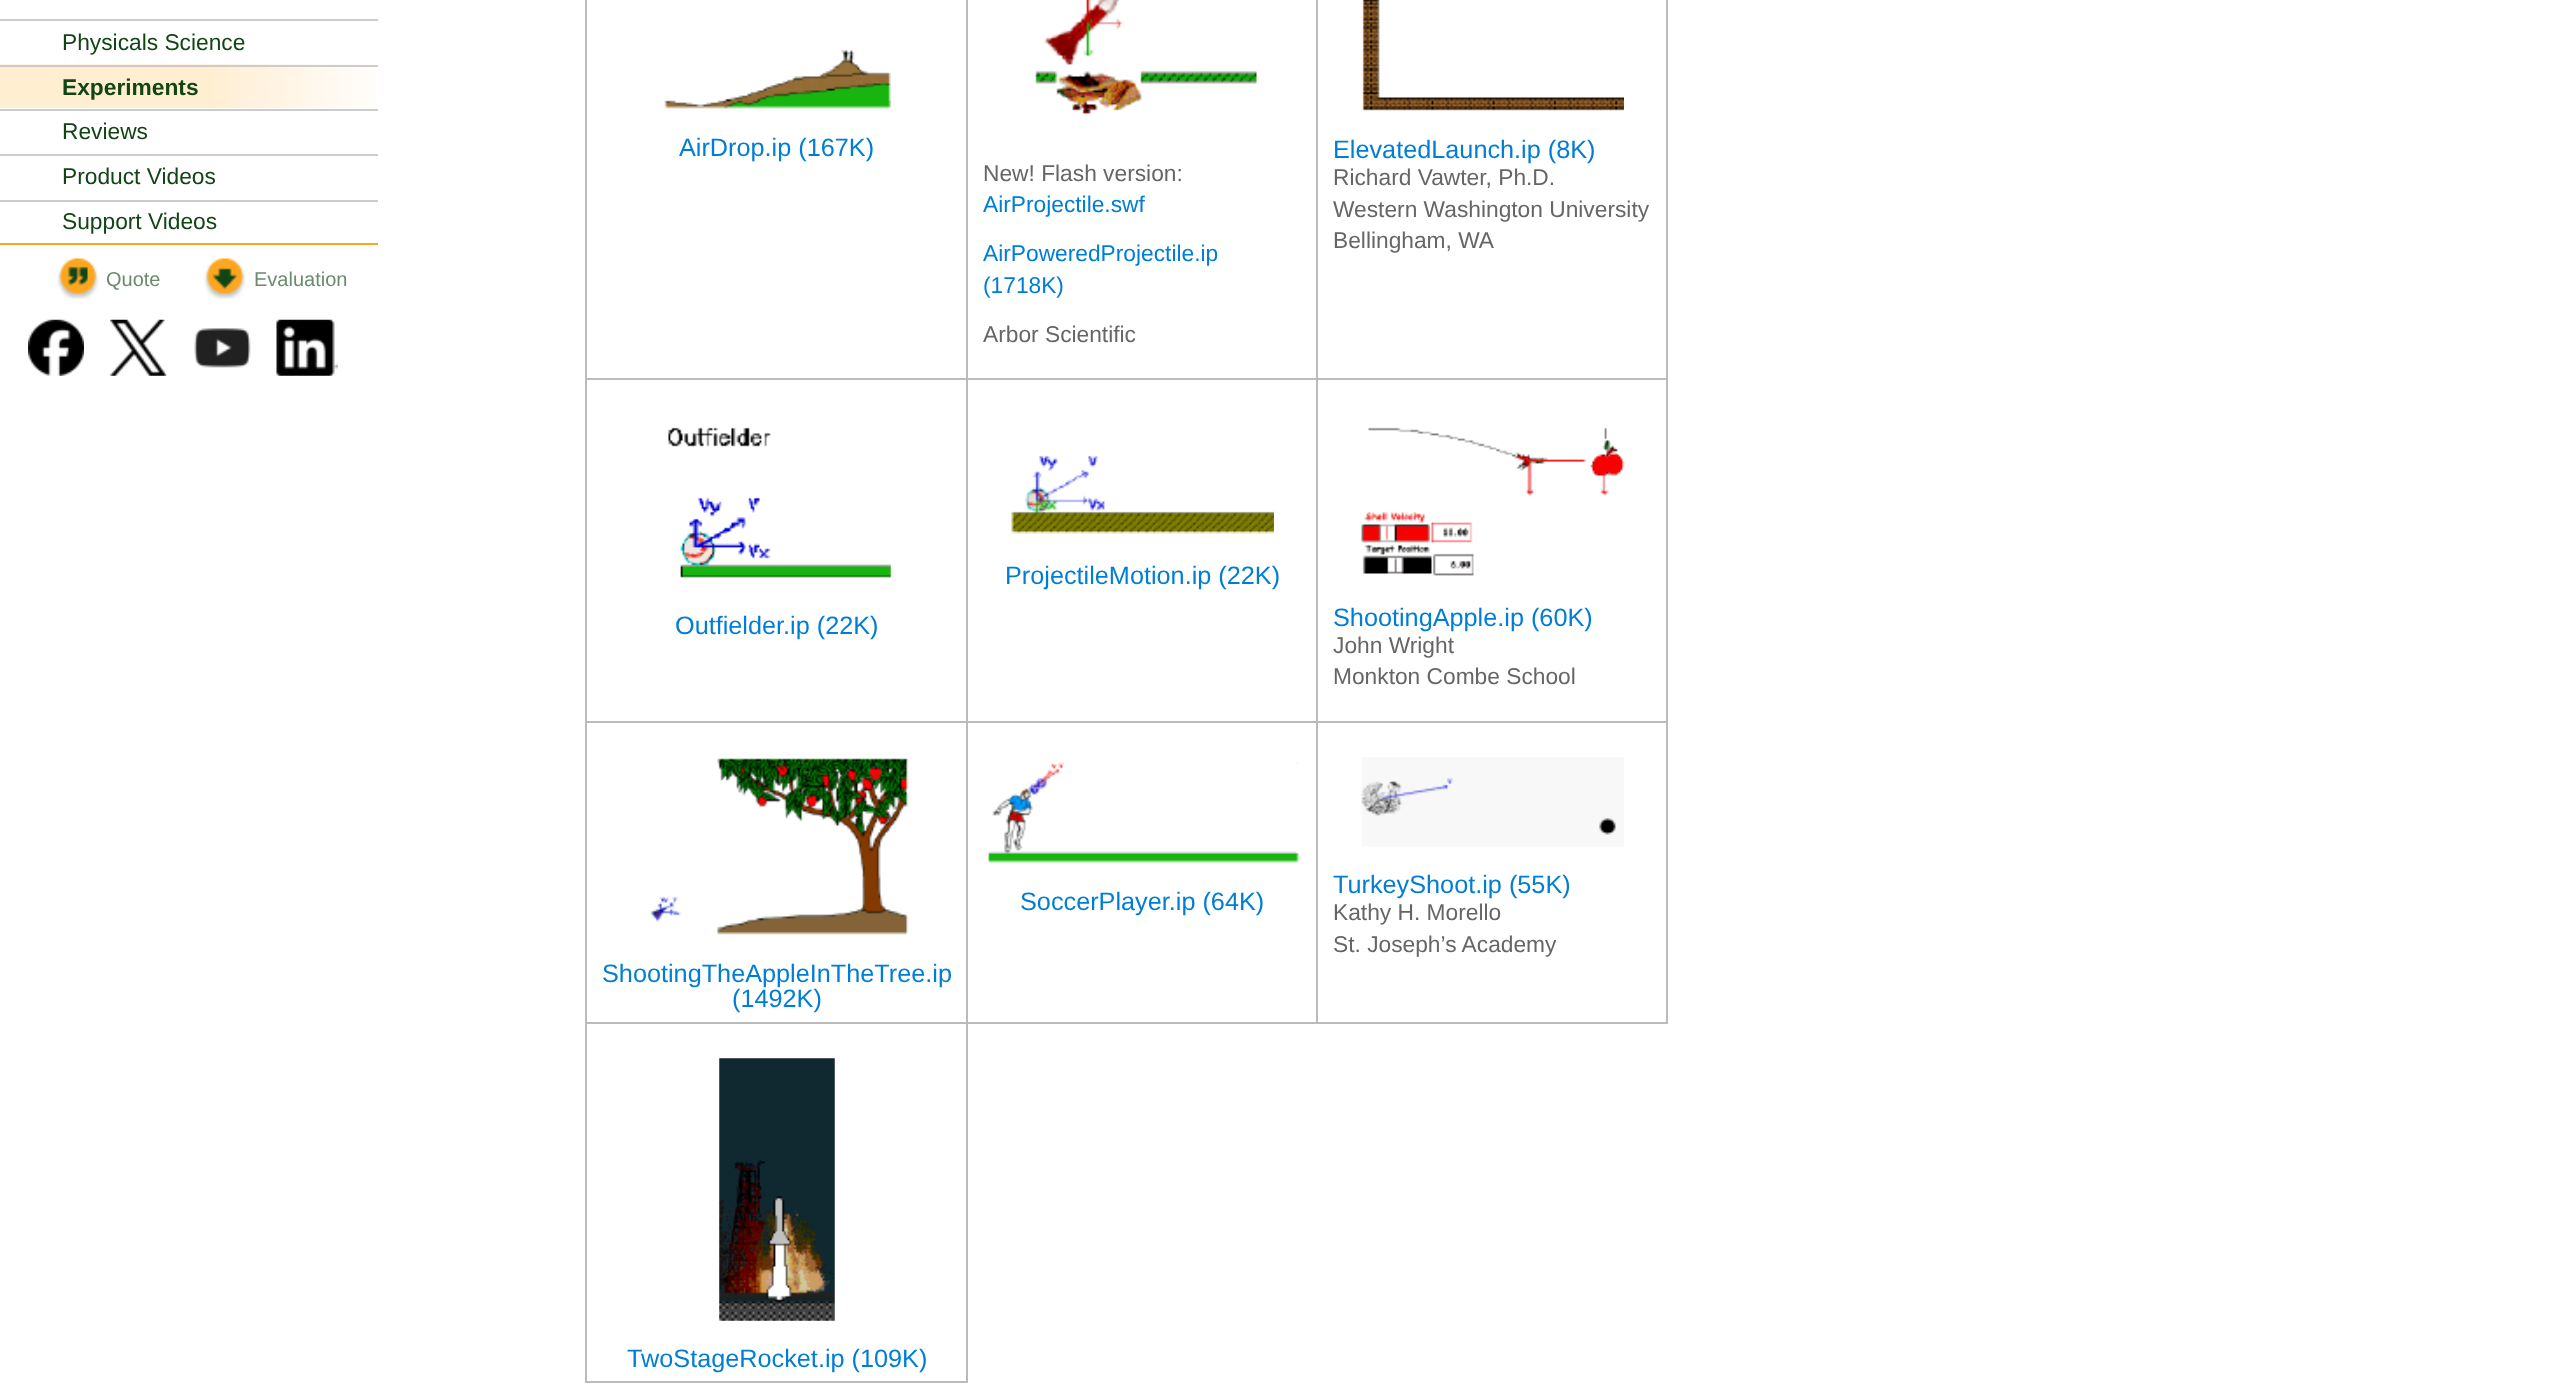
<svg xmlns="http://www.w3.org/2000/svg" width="2560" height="1390">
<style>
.a{font:22.75px Liberation Sans;fill:#124515}
.b{font:bold 22.75px Liberation Sans;fill:#124515}
.c{font:20px Liberation Sans;fill:#6a8a6c}
.d{font:25.25px Liberation Sans;fill:#007dd4}
.e{font:22.75px Liberation Sans;fill:#666}
.f{font:22.75px Liberation Sans;fill:#007dd4}
</style>
<rect width="100%" height="100%" fill="#fff"/>
<path fill="#fea620" d="M0 243h378v2H0z"/>
<path fill="#ccc" d="M0 19h378v2H0z"/>
<image href="1.png" x="0" y="64" width="376" height="44"/>
<path fill="#ccc" d="M0 65h378v2H0z"/>
<path fill="#ccc" d="M0 109h378v2H0z"/>
<path fill="#ccc" d="M0 154h378v2H0z"/>
<path fill="#ccc" d="M0 200h378v2H0z"/>
<image href="2.png" x="57" y="258" width="42" height="41"/>
<image href="3.png" x="204" y="258" width="42" height="41"/>
<image href="4.png" x="28" y="319" width="56" height="57"/>
<image href="5.png" x="110" y="319" width="57" height="57"/>
<image href="6.png" x="194" y="328" width="57" height="40"/>
<image href="7.png" x="276" y="319" width="62" height="57"/>
<image href="8.png" x="664" y="49" width="227" height="60"/>
<path fill="#bbb" d="M1316 378h352v2H1316z"/>
<path fill="#bbb" d="M1316 721h352v2H1316z"/>
<path fill="#bbb" d="M1666 721h2v303H1666z"/>
<path fill="#bbb" d="M1316 1022h352v2H1316z"/>
<path fill="#bbb" d="M1316 721h2v303H1316z"/>
<path fill="#bbb" d="M966 721h352v2H966z"/>
<path fill="#bbb" d="M1316 378h2v345H1316z"/>
<path fill="#bbb" d="M966 378h352v2H966z"/>
<path fill="#bbb" d="M585 1022h383v2H585z"/>
<path fill="#bbb" d="M966 1022h2v361H966z"/>
<path fill="#bbb" d="M966 1022h352v2H966z"/>
<path fill="#bbb" d="M966 721h2v303H966z"/>
<path fill="#bbb" d="M585 721h383v2H585z"/>
<path fill="#bbb" d="M966 378h2v345H966z"/>
<path fill="#bbb" d="M585 378h383v2H585z"/>
<path fill="#bbb" d="M966 0h2v380H966z"/>
<image href="9.png" x="1035" y="0" width="222" height="114"/>
<path fill="#bbb" d="M1316 0h2v380H1316z"/>
<image href="10.png" x="1362" y="0" width="262" height="111"/>
<image href="11.png" x="1011" y="455" width="263" height="79"/>
<path fill="#bbb" d="M585 1381h383v2H585z"/>
<path fill="#bbb" d="M585 1022h2v361H585z"/>
<path fill="#bbb" d="M585 721h2v303H585z"/>
<path fill="#bbb" d="M585 0h2v723H585z"/>
<image href="12.png" x="668" y="427" width="223" height="151"/>
<path fill="#bbb" d="M1666 0h2v723H1666z"/>
<image href="13.png" x="1361" y="427" width="264" height="149"/>
<image href="14.png" x="988" y="762" width="311" height="101"/>
<image href="15.png" x="1361" y="757" width="263" height="90"/>
<image href="16.png" x="650" y="758" width="259" height="177"/>
<image href="17.png" x="719" y="1058" width="116" height="263"/>
<text class="a" x="62" y="50">Physicals Science</text>
<text class="b" x="62" y="95">Experiments</text>
<text class="a" x="62" y="139">Reviews</text>
<text class="a" x="62" y="184">Product Videos</text>
<text class="a" x="62" y="229">Support Videos</text>
<text class="c" x="106" y="286">Quote</text>
<text class="c" x="254" y="286">Evaluation</text>
<text class="d" x="679" y="156">AirDrop.ip (167K)</text>
<text class="e" x="983" y="181">New! Flash version:</text>
<text class="f" x="983" y="212">AirProjectile.swf</text>
<text class="f" x="983" y="261">AirPoweredProjectile.ip</text>
<text class="f" x="983" y="293">(1718K)</text>
<text class="e" x="983" y="342">Arbor Scientific</text>
<text class="d" x="1333" y="158">ElevatedLaunch.ip (8K)</text>
<text class="e" x="1333" y="185">Richard Vawter, Ph.D.</text>
<text class="e" x="1333" y="217">Western Washington University</text>
<text class="e" x="1333" y="248">Bellingham, WA</text>
<text class="d" x="1005" y="584">ProjectileMotion.ip (22K)</text>
<text class="d" x="675" y="634">Outfielder.ip (22K)</text>
<text class="d" x="1333" y="626">ShootingApple.ip (60K)</text>
<text class="e" x="1333" y="653">John Wright</text>
<text class="e" x="1333" y="684">Monkton Combe School</text>
<text class="d" x="1020" y="910">SoccerPlayer.ip (64K)</text>
<text class="d" x="1333" y="893">TurkeyShoot.ip (55K)</text>
<text class="e" x="1333" y="920">Kathy H. Morello</text>
<text class="e" x="1333" y="952">St. Joseph’s Academy</text>
<text class="d" x="602" y="982">ShootingTheAppleInTheTree.ip</text>
<text class="d" x="732" y="1007">(1492K)</text>
<text class="d" x="627" y="1367">TwoStageRocket.ip (109K)</text>
</svg>
